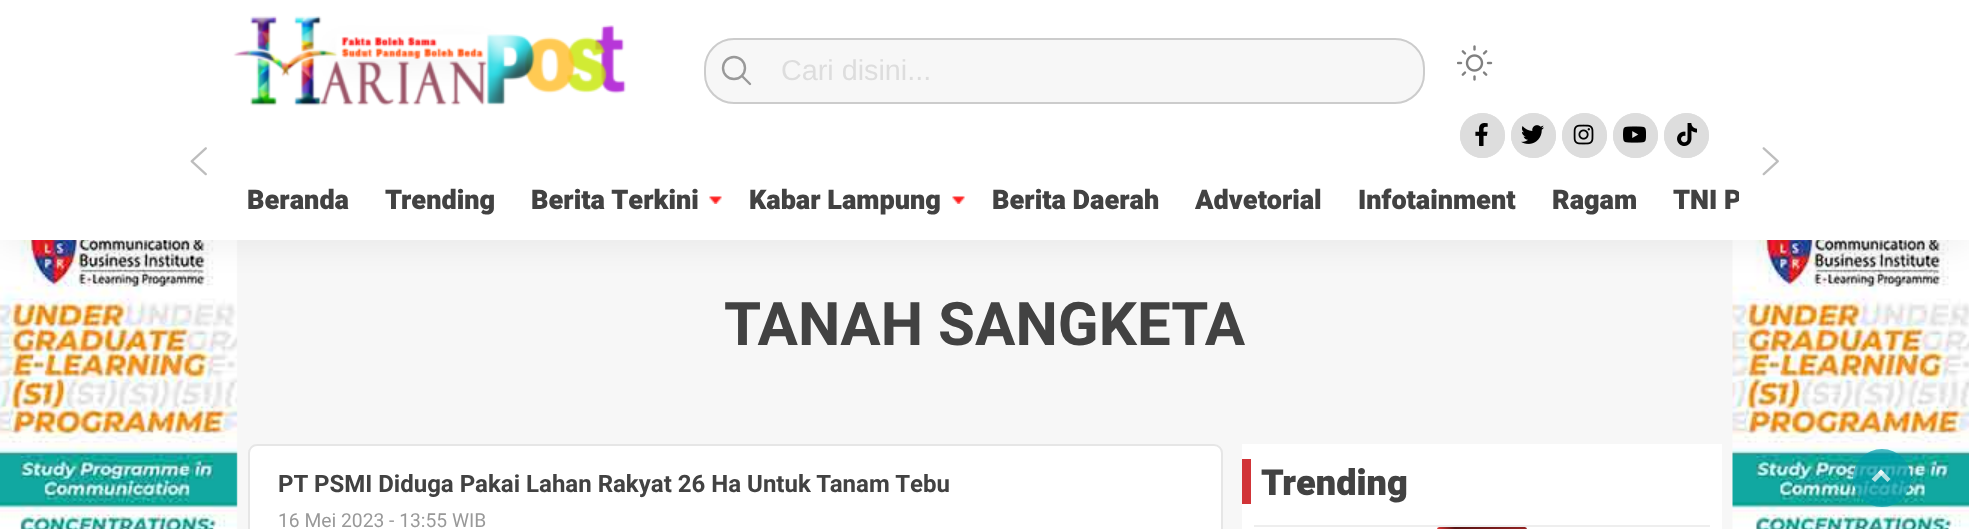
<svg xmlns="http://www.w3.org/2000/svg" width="1969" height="529">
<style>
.a{font:28.75px Liberation Sans;fill:#ddd}
.b{font:900 27px Heebo;fill:#424242}
.c{font:bold 60px Heebo;fill:#424242}
.d{font:bold 24px Heebo;fill:#424242}
.e{font:19.25px Heebo;fill:#999}
.f{font:900 36px Heebo;fill:#424242}
</style>
<defs>
<linearGradient id="g1" gradientUnits="userSpaceOnUse" x1="1437" y1="529" x2="1617" y2="529"><stop offset="0" stop-color="#dd3737"/><stop offset="0.1" stop-color="#571313"/><stop offset="1" stop-color="#dd3737"/></linearGradient>
<clipPath id="clip1"><path d="M233 174h1506v66H233z"/></clipPath>
</defs>
<rect width="100%" height="100%" fill="#f7f7f7"/>
<image href="11.png" x="0" y="240" width="238" height="289"/>
<image href="12.png" x="1732" y="240" width="237" height="289"/>
<path fill="#0000000d" filter="blur(14.5px)" d="M0 9h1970v240H0z"/>
<path fill="#fff" d="M0 0h1969v240H0z"/>
<image href="1.png" x="233" y="16" width="393" height="90"/>
<rect fill="#f7f7f7" x="704" y="38" width="721" height="66" rx="30"/>
<circle fill="none" stroke="#999" stroke-width="2.4" cx="734" cy="68" r="11"/>
<path fill="none" stroke="#999" stroke-width="2.4" stroke-linecap="round" stroke-linejoin="round" d="M750 84l-8-8"/>
<rect fill="none" stroke="#ccc" stroke-width="2" x="705" y="39" width="719" height="64" rx="29"/>
<image href="2.png" x="1457" y="45" width="36" height="36"/>
<circle fill="#ddd" cx="1482.5" cy="135.5" r="22.5"/>
<image href="3.png" x="1475" y="123" width="13" height="24"/>
<circle fill="none" stroke="#ddd" stroke-width="2" cx="1482.5" cy="135.5" r="21.5"/>
<circle fill="#ddd" cx="1533.5" cy="135.5" r="22.5"/>
<image href="4.png" x="1521" y="125" width="23" height="19"/>
<circle fill="none" stroke="#ddd" stroke-width="2" cx="1533.5" cy="135.5" r="21.5"/>
<circle fill="#ddd" cx="1584.5" cy="135.5" r="22.5"/>
<image href="5.png" x="1573" y="124" width="21" height="21"/>
<circle fill="none" stroke="#ddd" stroke-width="2" cx="1584.5" cy="135.5" r="21.5"/>
<circle fill="#ddd" cx="1635.5" cy="135.5" r="22.5"/>
<image href="6.png" x="1623" y="126" width="23" height="17"/>
<circle fill="none" stroke="#ddd" stroke-width="2" cx="1635.5" cy="135.5" r="21.5"/>
<circle fill="#ddd" cx="1686.5" cy="135.5" r="22.5"/>
<image href="7.png" x="1677" y="123" width="20" height="23"/>
<circle fill="none" stroke="#ddd" stroke-width="2" cx="1686.5" cy="135.5" r="21.5"/>
<image href="8.png" x="190" y="147" width="17" height="29"/>
<image href="9.png" x="1762" y="147" width="17" height="29"/>
<image href="10.png" x="709" y="196" width="13" height="8"/>
<image href="10.png" x="952" y="196" width="13" height="8"/>
<rect fill="#fff" stroke="#e6e6e6" stroke-width="2" x="249" y="445" width="973" height="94" rx="8"/>
<path fill="#fff" d="M1242 444h480v85H1242z"/>
<path fill="#eee" d="M1254 525h456v2H1254z"/>
<path fill="#d13438" d="M1242 459h9v45H1242z"/>
<rect fill="url(#g1)" x="1437" y="527" width="90" height="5" rx="2.5"/>
<circle fill="#009ba9b3" cx="1882" cy="478" r="29"/>
<path fill="#ffffffb3" d="M1875 482l-3.5-3l9.5-9.5l3.5 3z"/>
<path fill="#ffffffb3" d="M1887.5 482l-9.5-9.5l3-3l9.5 9.5z"/>
<text class="a" x="781" y="80">Cari disini...</text>
<text class="b" x="247" y="209">Beranda</text>
<text class="b" x="385" y="209">Trending</text>
<text class="b" x="531" y="209">Berita Terkini</text>
<text class="b" x="749" y="209">Kabar Lampung</text>
<text class="b" x="992" y="209">Berita Daerah</text>
<text class="b" x="1195" y="209">Advetorial</text>
<text class="b" x="1358" y="209">Infotainment</text>
<text class="b" x="1552" y="209">Ragam</text>
<g clip-path="url(#clip1)">
<text class="b" x="1673" y="209">TNI P</text>
</g>
<text class="c" x="724" y="345">TANAH SANGKETA</text>
<text class="d" x="278" y="492">PT PSMI Diduga Pakai Lahan Rakyat 26 Ha Untuk Tanam Tebu</text>
<text class="e" x="278" y="527">16 Mei 2023 - 13:55 WIB</text>
<text class="f" x="1261" y="495">Trending</text>
</svg>
